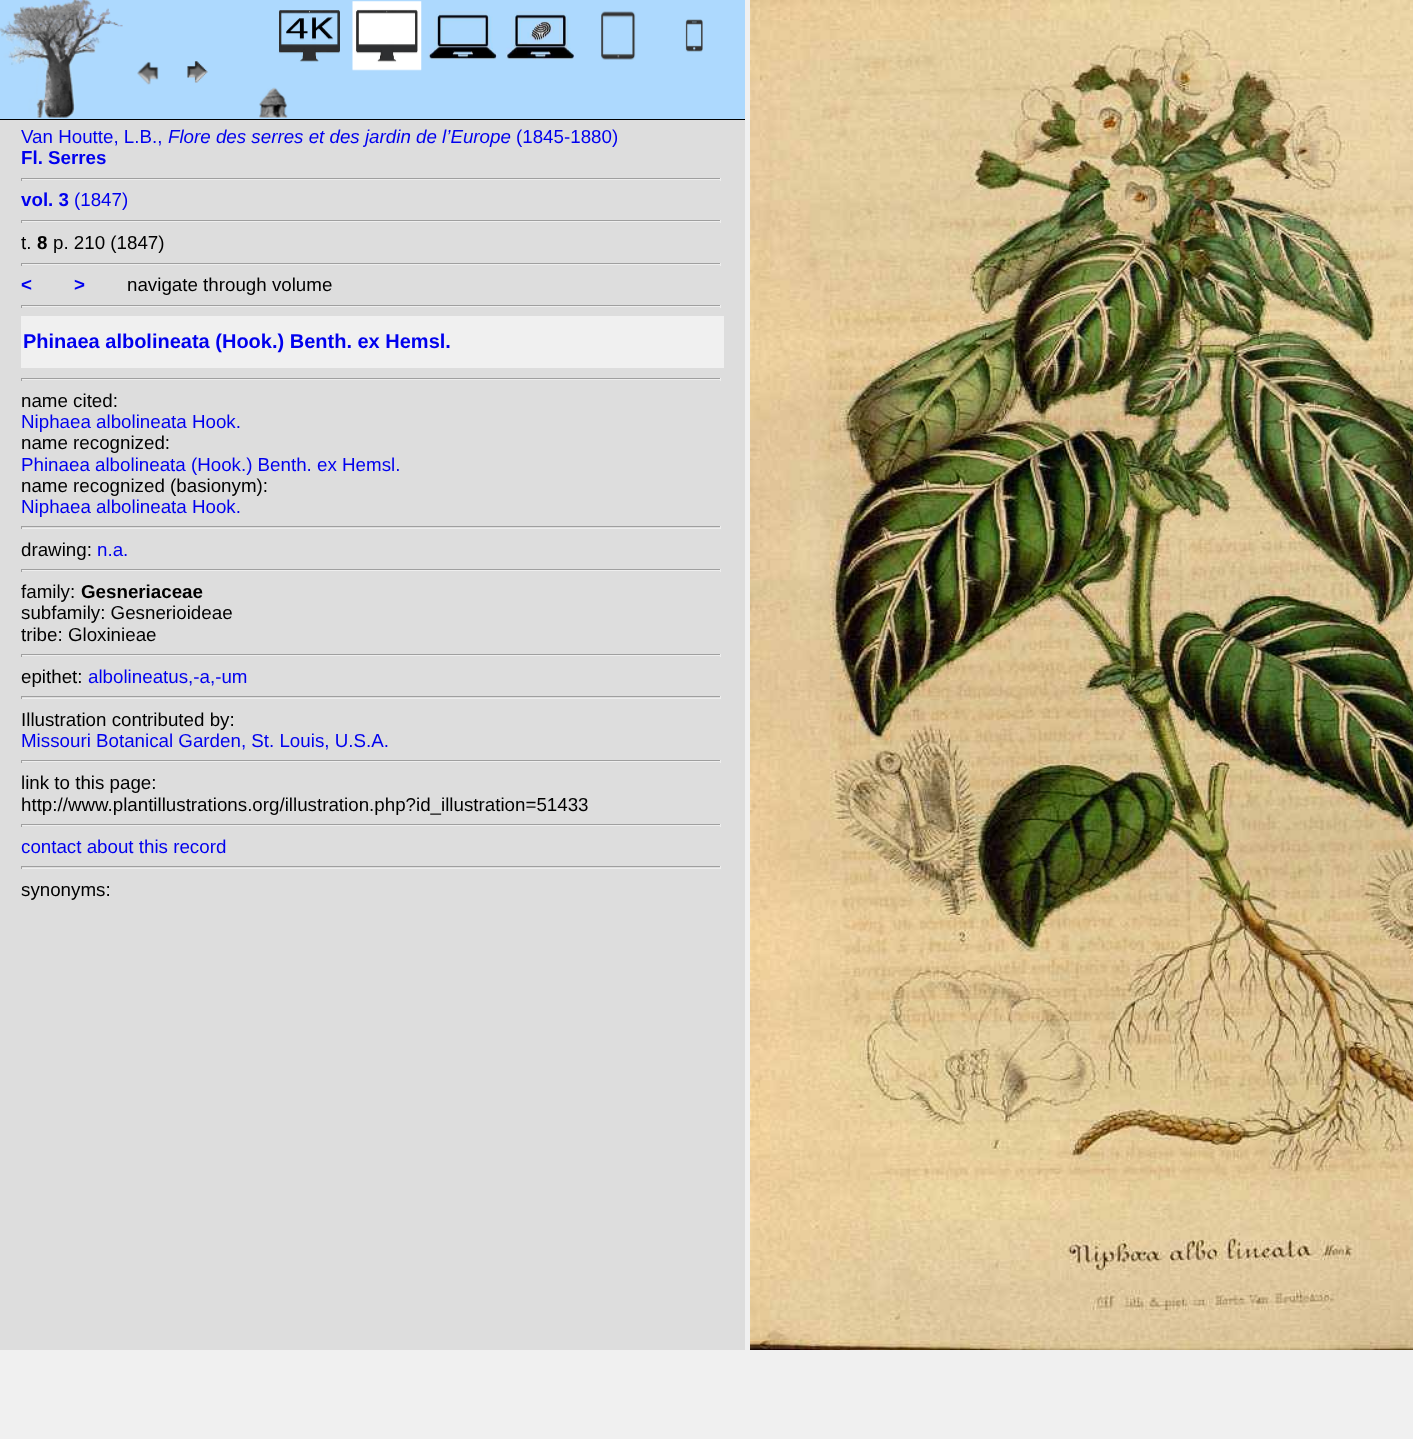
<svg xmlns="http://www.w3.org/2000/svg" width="1413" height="1439">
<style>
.a{font:18.75px Liberation Sans;fill:#00e}
.b{font:italic 18.75px Liberation Sans;fill:#00e}
.c{font:bold 18.75px Liberation Sans;fill:#00e}
.d{font:18.75px Liberation Sans;fill:#000}
.e{font:bold 18.75px Liberation Sans;fill:#000}
.f{font:bold 20px Liberation Sans;fill:#00e}
</style>
<rect width="100%" height="100%" fill="#f0f0f0"/>
<path fill="#ddd" d="M0 120h745v1230H0z"/>
<path fill="#add9fe" d="M0 0h745v119H0z"/>
<path fill="#000" d="M0 119h745v1H0z"/>
<image href="1.png" x="0" y="0" width="123" height="118"/>
<image href="2.png" x="137" y="61" width="22" height="24"/>
<image href="3.png" x="187" y="61" width="21" height="22"/>
<image href="4.png" x="277" y="10" width="63" height="52"/>
<image href="5.png" x="352" y="1" width="70" height="70"/>
<image href="6.png" x="428" y="11" width="70" height="49"/>
<image href="7.png" x="506" y="11" width="69" height="49"/>
<image href="8.png" x="601" y="11" width="35" height="49"/>
<image href="9.png" x="685" y="19" width="18" height="33"/>
<image href="10.png" x="259" y="87" width="29" height="31"/>
<path fill="#9f9f9f" d="M21 178h700v1H21z"/>
<path fill="#eee" d="M720 178h1v3H720z"/>
<path fill="#eee" d="M21 179h700v1H21z"/>
<path fill="#9f9f9f" d="M21 178h1v3H21z"/>
<path fill="#9f9f9f" d="M21 220h700v1H21z"/>
<path fill="#eee" d="M720 220h1v3H720z"/>
<path fill="#eee" d="M21 221h700v1H21z"/>
<path fill="#9f9f9f" d="M21 220h1v3H21z"/>
<path fill="#9f9f9f" d="M21 263h700v1H21z"/>
<path fill="#eee" d="M720 263h1v3H720z"/>
<path fill="#eee" d="M21 264h700v1H21z"/>
<path fill="#9f9f9f" d="M21 263h1v3H21z"/>
<path fill="#9f9f9f" d="M21 305h700v1H21z"/>
<path fill="#eee" d="M720 305h1v3H720z"/>
<path fill="#eee" d="M21 306h700v1H21z"/>
<path fill="#9f9f9f" d="M21 305h1v3H21z"/>
<path fill="#f0f0f0" d="M21 316h703v52H21z"/>
<path fill="#9f9f9f" d="M21 378h700v1H21z"/>
<path fill="#eee" d="M720 378h1v3H720z"/>
<path fill="#eee" d="M21 379h700v1H21z"/>
<path fill="#9f9f9f" d="M21 378h1v3H21z"/>
<path fill="#9f9f9f" d="M21 526h700v1H21z"/>
<path fill="#eee" d="M720 526h1v3H720z"/>
<path fill="#eee" d="M21 528h700v1H21z"/>
<path fill="#9f9f9f" d="M21 526h1v3H21z"/>
<path fill="#9f9f9f" d="M21 569h700v1H21z"/>
<path fill="#eee" d="M720 569h1v3H720z"/>
<path fill="#eee" d="M21 570h700v1H21z"/>
<path fill="#9f9f9f" d="M21 569h1v3H21z"/>
<path fill="#9f9f9f" d="M21 654h700v1H21z"/>
<path fill="#eee" d="M720 654h1v3H720z"/>
<path fill="#eee" d="M21 655h700v1H21z"/>
<path fill="#9f9f9f" d="M21 654h1v3H21z"/>
<path fill="#9f9f9f" d="M21 696h700v1H21z"/>
<path fill="#eee" d="M720 696h1v3H720z"/>
<path fill="#eee" d="M21 698h700v1H21z"/>
<path fill="#9f9f9f" d="M21 696h1v3H21z"/>
<path fill="#9f9f9f" d="M21 760h700v1H21z"/>
<path fill="#eee" d="M720 760h1v3H720z"/>
<path fill="#eee" d="M21 761h700v1H21z"/>
<path fill="#9f9f9f" d="M21 760h1v3H21z"/>
<path fill="#9f9f9f" d="M21 824h700v1H21z"/>
<path fill="#eee" d="M720 824h1v3H720z"/>
<path fill="#eee" d="M21 825h700v1H21z"/>
<path fill="#9f9f9f" d="M21 824h1v3H21z"/>
<path fill="#9f9f9f" d="M21 866h700v1H21z"/>
<path fill="#eee" d="M720 866h1v3H720z"/>
<path fill="#eee" d="M21 868h700v1H21z"/>
<path fill="#9f9f9f" d="M21 866h1v3H21z"/>
<image href="11.png" x="750" y="0" width="663" height="1350"/>
<text class="a" x="21" y="143">Van Houtte, L.B.,</text>
<text class="b" x="168" y="143">Flore des serres et des jardin de l’Europe</text>
<text class="a" x="516" y="143">(1845-1880)</text>
<text class="c" x="21" y="164">Fl. Serres</text>
<text class="c" x="21" y="206">vol. 3</text>
<text class="a" x="74" y="206">(1847)</text>
<text class="d" x="21" y="249">t.</text>
<text class="e" x="37" y="249">8</text>
<text class="d" x="53" y="249">p. 210 (1847)</text>
<text class="c" x="21" y="291">&lt;</text>
<text class="c" x="74" y="291">&gt;</text>
<text class="d" x="127" y="291">navigate through volume</text>
<text class="f" x="23" y="348">Phinaea albolineata (Hook.) Benth. ex Hemsl.</text>
<text class="d" x="21" y="407">name cited:</text>
<text class="a" x="21" y="428">Niphaea albolineata Hook.</text>
<text class="d" x="21" y="449">name recognized:</text>
<text class="a" x="21" y="471">Phinaea albolineata (Hook.) Benth. ex Hemsl.</text>
<text class="d" x="21" y="492">name recognized (basionym):</text>
<text class="a" x="21" y="513">Niphaea albolineata Hook.</text>
<text class="d" x="21" y="556">drawing:</text>
<text class="a" x="97" y="556">n.a.</text>
<text class="d" x="21" y="598">family:</text>
<text class="e" x="81" y="598">Gesneriaceae</text>
<text class="d" x="21" y="619">subfamily: Gesnerioideae</text>
<text class="d" x="21" y="641">tribe: Gloxinieae</text>
<text class="d" x="21" y="683">epithet:</text>
<text class="a" x="88" y="683">albolineatus,-a,-um</text>
<text class="d" x="21" y="726">Illustration contributed by:</text>
<text class="a" x="21" y="747">Missouri Botanical Garden, St. Louis, U.S.A.</text>
<text class="d" x="21" y="789">link to this page:</text>
<text class="d" x="21" y="811">http://www.plantillustrations.org/illustration.php?id_illustration=51433</text>
<text class="a" x="21" y="853">contact about this record</text>
<text class="d" x="21" y="896">synonyms:</text>
</svg>
